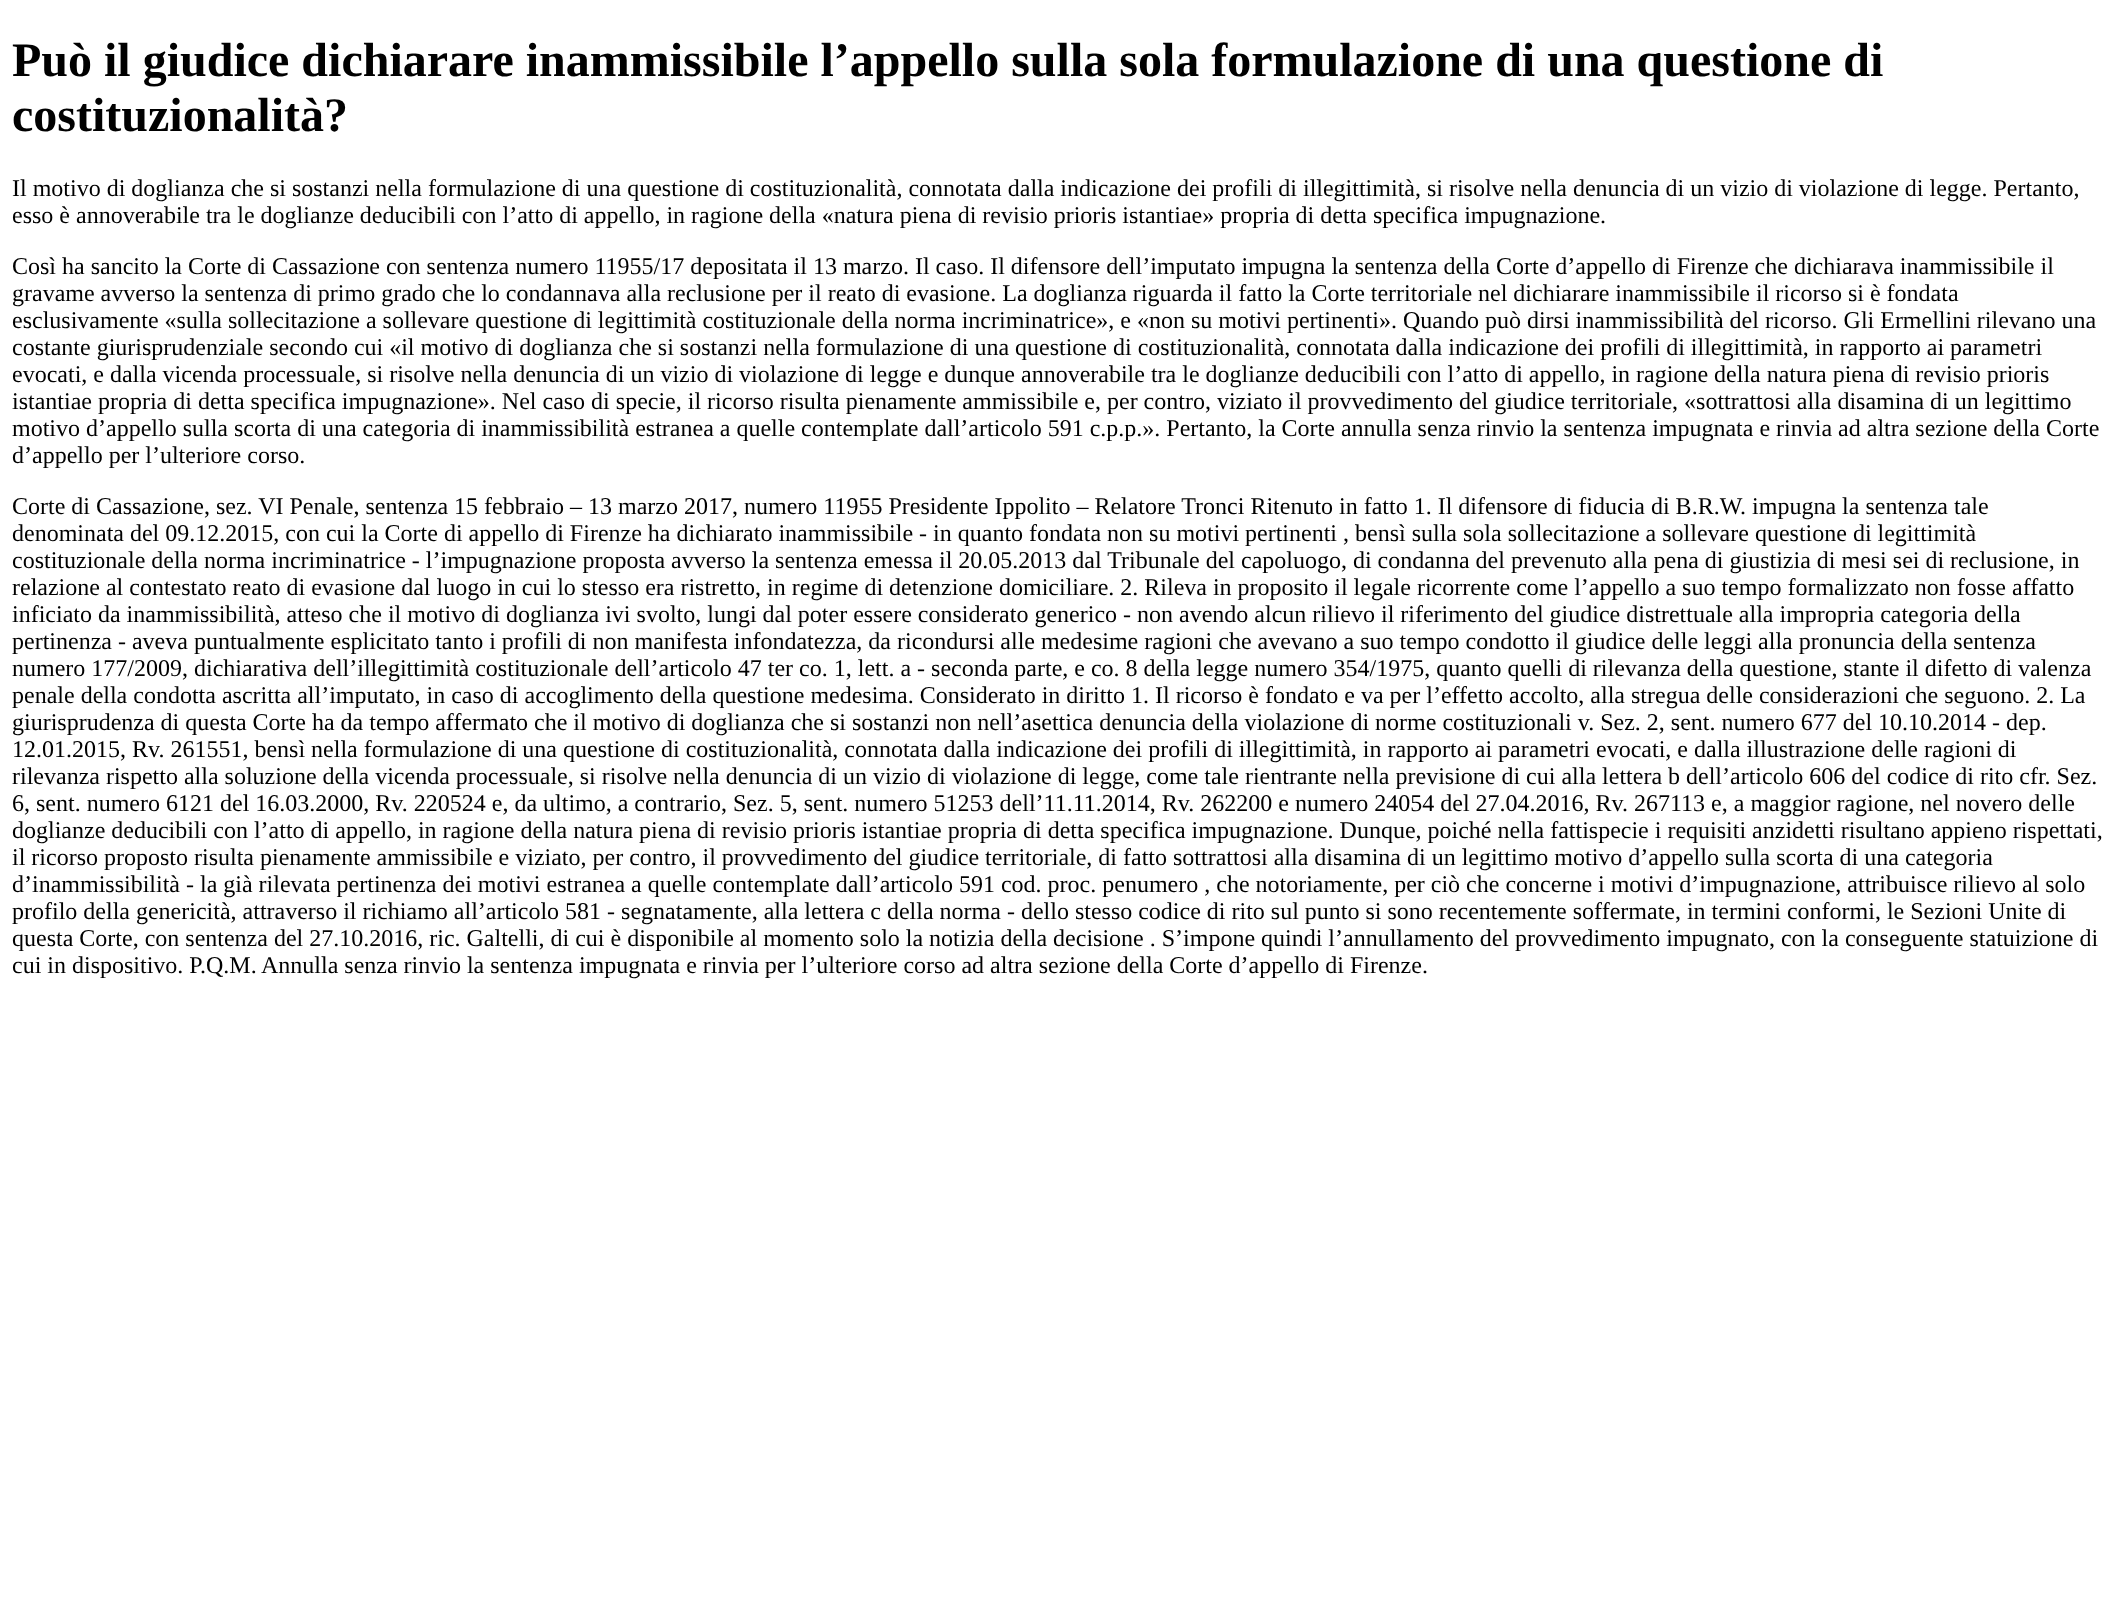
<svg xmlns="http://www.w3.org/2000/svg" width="2117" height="1598">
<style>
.a{font:bold 48px Liberation Serif;fill:#000}
.b{font:24px Liberation Serif;fill:#000}
</style>
<rect width="100%" height="100%" fill="#fff"/>
<text class="a" x="12" y="76">Può il giudice dichiarare inammissibile l’appello sulla sola formulazione di una questione di</text>
<text class="a" x="12" y="131">costituzionalità?</text>
<text class="b" x="12" y="196">Il motivo di doglianza che si sostanzi nella formulazione di una questione di costituzionalità, connotata dalla indicazione dei profili di illegittimità, si risolve nella denuncia di un vizio di violazione di legge. Pertanto,</text>
<text class="b" x="12" y="223">esso è annoverabile tra le doglianze deducibili con l’atto di appello, in ragione della «natura piena di revisio prioris istantiae» propria di detta specifica impugnazione.</text>
<text class="b" x="12" y="274">Così ha sancito la Corte di Cassazione con sentenza numero 11955/17 depositata il 13 marzo. Il caso. Il difensore dell’imputato impugna la sentenza della Corte d’appello di Firenze che dichiarava inammissibile il</text>
<text class="b" x="12" y="301">gravame avverso la sentenza di primo grado che lo condannava alla reclusione per il reato di evasione. La doglianza riguarda il fatto la Corte territoriale nel dichiarare inammissibile il ricorso si è fondata</text>
<text class="b" x="12" y="328">esclusivamente «sulla sollecitazione a sollevare questione di legittimità costituzionale della norma incriminatrice», e «non su motivi pertinenti». Quando può dirsi inammissibilità del ricorso. Gli Ermellini rilevano una</text>
<text class="b" x="12" y="355">costante giurisprudenziale secondo cui «il motivo di doglianza che si sostanzi nella formulazione di una questione di costituzionalità, connotata dalla indicazione dei profili di illegittimità, in rapporto ai parametri</text>
<text class="b" x="12" y="382">evocati, e dalla vicenda processuale, si risolve nella denuncia di un vizio di violazione di legge e dunque annoverabile tra le doglianze deducibili con l’atto di appello, in ragione della natura piena di revisio prioris</text>
<text class="b" x="12" y="409">istantiae propria di detta specifica impugnazione». Nel caso di specie, il ricorso risulta pienamente ammissibile e, per contro, viziato il provvedimento del giudice territoriale, «sottrattosi alla disamina di un legittimo</text>
<text class="b" x="12" y="436">motivo d’appello sulla scorta di una categoria di inammissibilità estranea a quelle contemplate dall’articolo 591 c.p.p.». Pertanto, la Corte annulla senza rinvio la sentenza impugnata e rinvia ad altra sezione della Corte</text>
<text class="b" x="12" y="463">d’appello per l’ulteriore corso.</text>
<text class="b" x="12" y="514">Corte di Cassazione, sez. VI Penale, sentenza 15 febbraio – 13 marzo 2017, numero 11955 Presidente Ippolito – Relatore Tronci Ritenuto in fatto 1. Il difensore di fiducia di B.R.W. impugna la sentenza tale</text>
<text class="b" x="12" y="541">denominata del 09.12.2015, con cui la Corte di appello di Firenze ha dichiarato inammissibile - in quanto fondata non su motivi pertinenti , bensì sulla sola sollecitazione a sollevare questione di legittimità</text>
<text class="b" x="12" y="568">costituzionale della norma incriminatrice - l’impugnazione proposta avverso la sentenza emessa il 20.05.2013 dal Tribunale del capoluogo, di condanna del prevenuto alla pena di giustizia di mesi sei di reclusione, in</text>
<text class="b" x="12" y="595">relazione al contestato reato di evasione dal luogo in cui lo stesso era ristretto, in regime di detenzione domiciliare. 2. Rileva in proposito il legale ricorrente come l’appello a suo tempo formalizzato non fosse affatto</text>
<text class="b" x="12" y="622">inficiato da inammissibilità, atteso che il motivo di doglianza ivi svolto, lungi dal poter essere considerato generico - non avendo alcun rilievo il riferimento del giudice distrettuale alla impropria categoria della</text>
<text class="b" x="12" y="649">pertinenza - aveva puntualmente esplicitato tanto i profili di non manifesta infondatezza, da ricondursi alle medesime ragioni che avevano a suo tempo condotto il giudice delle leggi alla pronuncia della sentenza</text>
<text class="b" x="12" y="676">numero 177/2009, dichiarativa dell’illegittimità costituzionale dell’articolo 47 ter co. 1, lett. a - seconda parte, e co. 8 della legge numero 354/1975, quanto quelli di rilevanza della questione, stante il difetto di valenza</text>
<text class="b" x="12" y="703">penale della condotta ascritta all’imputato, in caso di accoglimento della questione medesima. Considerato in diritto 1. Il ricorso è fondato e va per l’effetto accolto, alla stregua delle considerazioni che seguono. 2. La</text>
<text class="b" x="12" y="730">giurisprudenza di questa Corte ha da tempo affermato che il motivo di doglianza che si sostanzi non nell’asettica denuncia della violazione di norme costituzionali v. Sez. 2, sent. numero 677 del 10.10.2014 - dep.</text>
<text class="b" x="12" y="757">12.01.2015, Rv. 261551, bensì nella formulazione di una questione di costituzionalità, connotata dalla indicazione dei profili di illegittimità, in rapporto ai parametri evocati, e dalla illustrazione delle ragioni di</text>
<text class="b" x="12" y="784">rilevanza rispetto alla soluzione della vicenda processuale, si risolve nella denuncia di un vizio di violazione di legge, come tale rientrante nella previsione di cui alla lettera b dell’articolo 606 del codice di rito cfr. Sez.</text>
<text class="b" x="12" y="811">6, sent. numero 6121 del 16.03.2000, Rv. 220524 e, da ultimo, a contrario, Sez. 5, sent. numero 51253 dell’11.11.2014, Rv. 262200 e numero 24054 del 27.04.2016, Rv. 267113 e, a maggior ragione, nel novero delle</text>
<text class="b" x="12" y="838">doglianze deducibili con l’atto di appello, in ragione della natura piena di revisio prioris istantiae propria di detta specifica impugnazione. Dunque, poiché nella fattispecie i requisiti anzidetti risultano appieno rispettati,</text>
<text class="b" x="12" y="865">il ricorso proposto risulta pienamente ammissibile e viziato, per contro, il provvedimento del giudice territoriale, di fatto sottrattosi alla disamina di un legittimo motivo d’appello sulla scorta di una categoria</text>
<text class="b" x="12" y="892">d’inammissibilità - la già rilevata pertinenza dei motivi estranea a quelle contemplate dall’articolo 591 cod. proc. penumero , che notoriamente, per ciò che concerne i motivi d’impugnazione, attribuisce rilievo al solo</text>
<text class="b" x="12" y="919">profilo della genericità, attraverso il richiamo all’articolo 581 - segnatamente, alla lettera c della norma - dello stesso codice di rito sul punto si sono recentemente soffermate, in termini conformi, le Sezioni Unite di</text>
<text class="b" x="12" y="946">questa Corte, con sentenza del 27.10.2016, ric. Galtelli, di cui è disponibile al momento solo la notizia della decisione . S’impone quindi l’annullamento del provvedimento impugnato, con la conseguente statuizione di</text>
<text class="b" x="12" y="973">cui in dispositivo. P.Q.M.</text>
<text class="b" x="261" y="973">Annulla senza rinvio la sentenza impugnata e rinvia per l’ulteriore corso ad altra sezione della Corte d’appello di Firenze.</text>
</svg>
